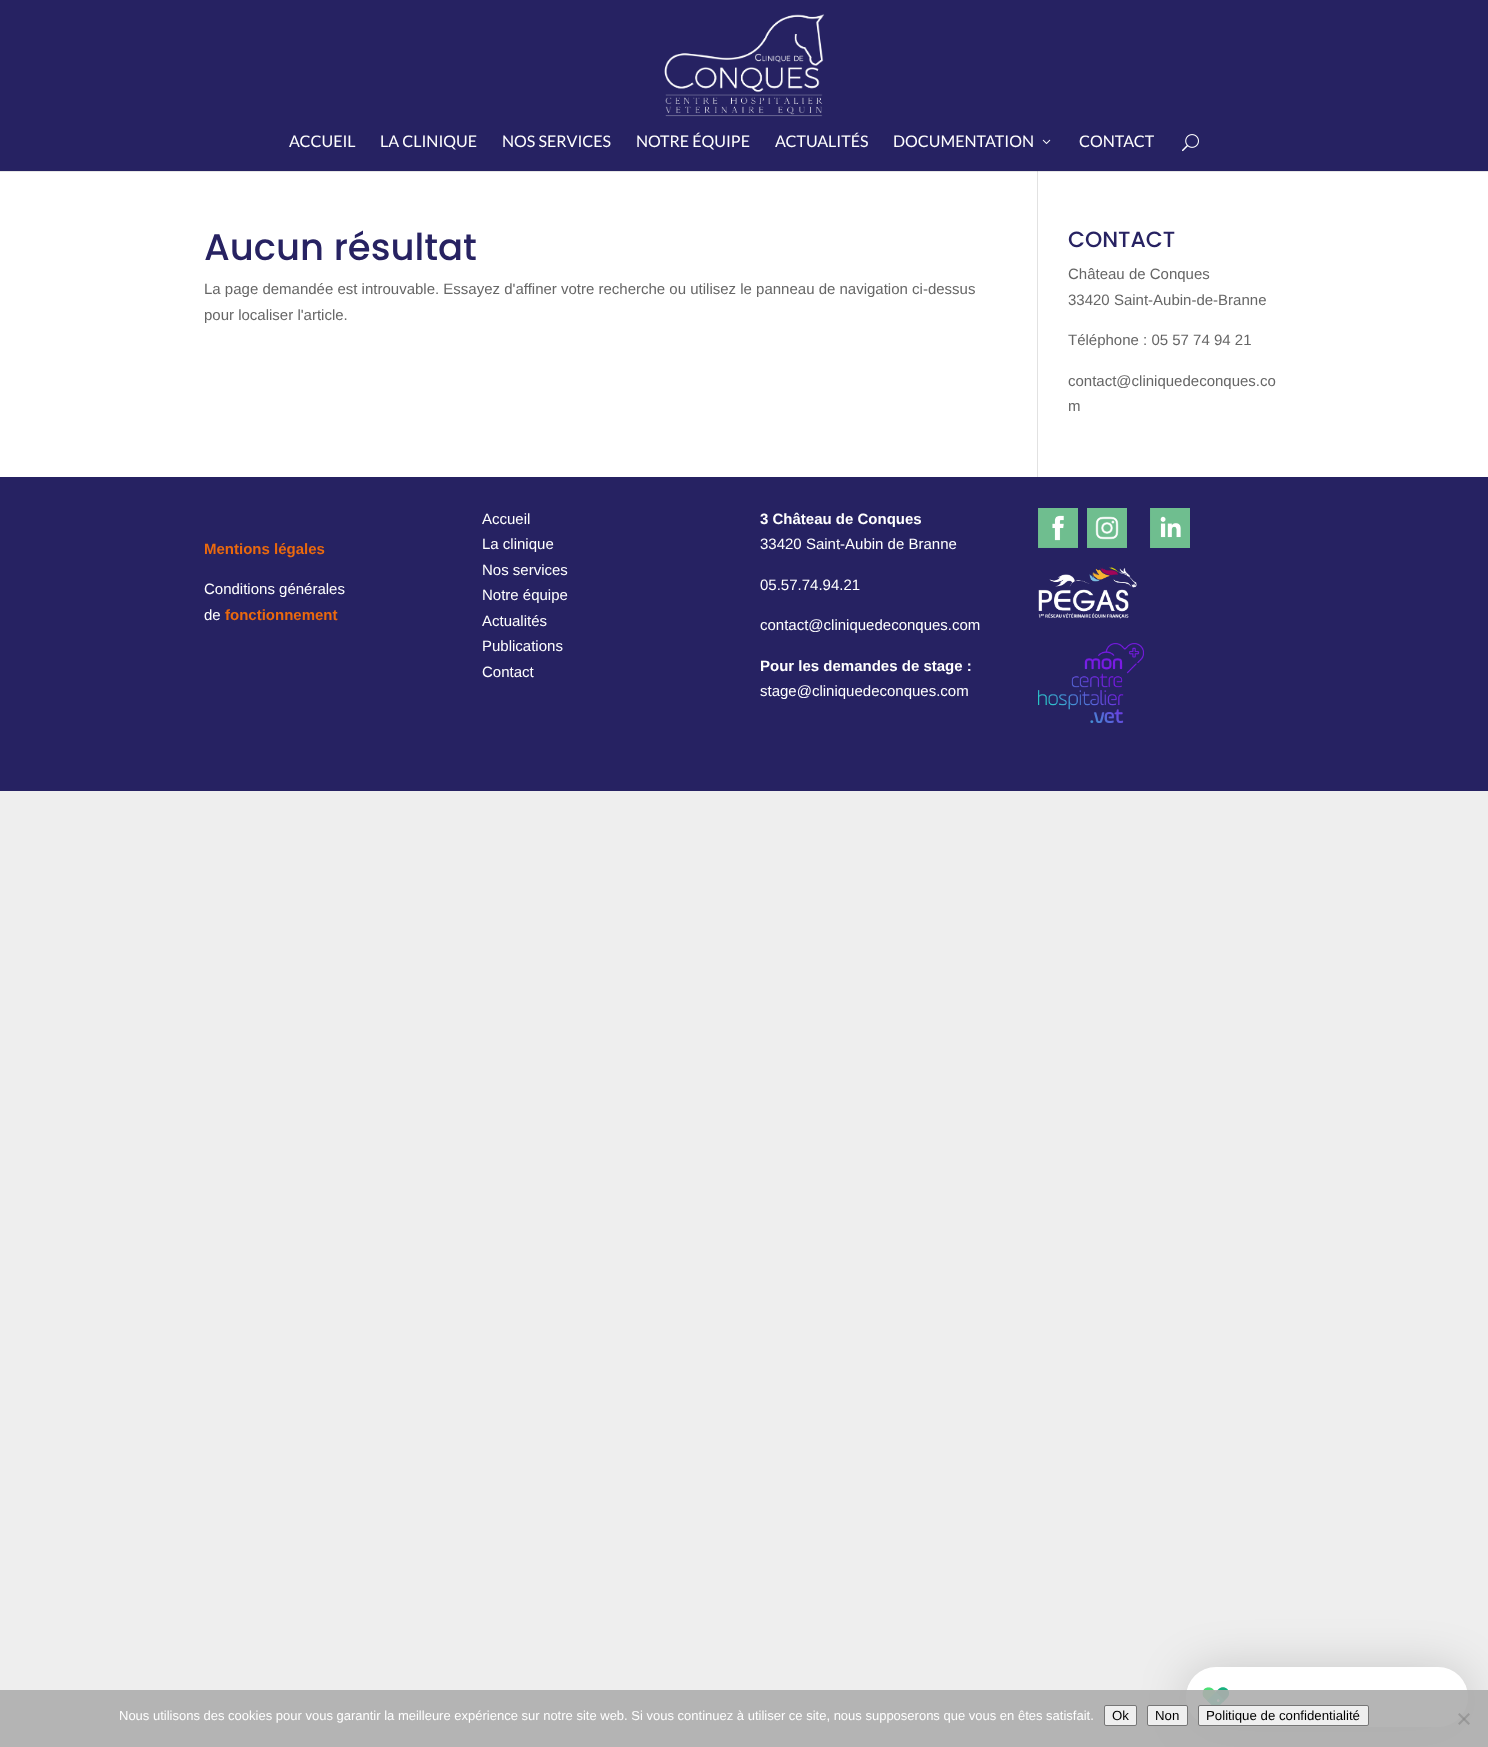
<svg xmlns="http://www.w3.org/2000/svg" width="1488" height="1747">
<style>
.a{font:16px Lato;fill:#fff}
.b{font:500 37px Poppins;fill:#272262}
.c{font:15px Liberation Sans;fill:#666}
.d{font:500 22px Poppins;fill:#272262}
.e{font:bold 15px Liberation Sans;fill:#eb690d}
.f{font:15px Liberation Sans;fill:#fff}
.g{font:bold 15px Liberation Sans;fill:#fff}
.h{font:13px Liberation Sans;fill:#fff}
.i{font:13.25px Liberation Sans;fill:#000}
</style>
<rect width="100%" height="100%" fill="#eee"/>
<path fill="#262262" d="M0 0h1488v171H0z"/>
<image href="1.png" x="664" y="14" width="161" height="103"/>
<image href="2.png" x="1042" y="139" width="9" height="5"/>
<image href="3.png" x="1182" y="134" width="17" height="18"/>
<path fill="#fff" d="M0 172h1488v305H0z"/>
<path fill="#e6e6e6" d="M0 171h1488v1H0z"/>
<path fill="#e2e2e2" d="M1037 171h1v306H1037z"/>
<path fill="#cbcbcb" d="M1037 171h1v1H1037z"/>
<path fill="#262262" d="M0 477h1488v314H0z"/>
<image href="4.png" x="1038" y="508" width="40" height="40"/>
<image href="5.png" x="1087" y="508" width="40" height="40"/>
<image href="6.png" x="1150" y="508" width="40" height="40"/>
<image href="7.png" x="1038" y="567" width="99" height="52"/>
<image href="8.png" x="1038" y="643" width="106" height="80"/>
<rect fill="#0000002e" filter="blur(25px)" x="1186" y="1671" width="282" height="60" rx="30"/>
<rect fill="#fff" x="1186" y="1667" width="282" height="60" rx="30"/>
<image href="9.png" x="1202" y="1687" width="28" height="18"/>
<path fill="#adadade6" d="M0 1690h1488v57H0z"/>
<rect fill="#efefef" stroke="#767676" x="1104.5" y="1705.5" width="32" height="20" rx="1.5"/>
<rect fill="#efefef" stroke="#767676" x="1147.5" y="1705.5" width="40" height="20" rx="1.5"/>
<rect fill="#efefef" stroke="#767676" x="1198.5" y="1705.5" width="170" height="20" rx="1.5"/>
<path fill="#999" d="M1468.5 1713l1.5 1.5l-10.5 10.5l-1.5-1.5z"/>
<path fill="#80808080" d="M1458 1714.5l1.5-1.5l10.5 10.5l-1.5 1.5z"/>
<text class="a" x="289" y="147">ACCUEIL</text>
<text class="a" x="380" y="147">LA CLINIQUE</text>
<text class="a" x="502" y="147">NOS SERVICES</text>
<text class="a" x="636" y="147">NOTRE ÉQUIPE</text>
<text class="a" x="775" y="147">ACTUALITÉS</text>
<text class="a" x="893" y="147">DOCUMENTATION</text>
<text class="a" x="1079" y="147">CONTACT</text>
<text class="b" x="204" y="260">Aucun résultat</text>
<text class="c" x="204" y="294">La page demandée est introuvable. Essayez d'affiner votre recherche ou utilisez le panneau de navigation ci-dessus</text>
<text class="c" x="204" y="320">pour localiser l'article.</text>
<text class="d" x="1068" y="247">CONTACT</text>
<text class="c" x="1068" y="279">Château de Conques</text>
<text class="c" x="1068" y="305">33420 Saint-Aubin-de-Branne</text>
<text class="c" x="1068" y="345">Téléphone : 05 57 74 94 21</text>
<text class="c" x="1068" y="386">contact@cliniquedeconques.co</text>
<text class="c" x="1068" y="411">m</text>
<text class="e" x="204" y="554">Mentions légales</text>
<text class="f" x="204" y="594">Conditions générales</text>
<text class="f" x="204" y="620">de</text>
<text class="e" x="225" y="620">fonctionnement</text>
<text class="f" x="482" y="524">Accueil</text>
<text class="f" x="482" y="549">La clinique</text>
<text class="f" x="482" y="575">Nos services</text>
<text class="f" x="482" y="600">Notre équipe</text>
<text class="f" x="482" y="626">Actualités</text>
<text class="f" x="482" y="651">Publications</text>
<text class="f" x="482" y="677">Contact</text>
<text class="g" x="760" y="524">3 Château de Conques</text>
<text class="f" x="760" y="549">33420 Saint-Aubin de Branne</text>
<text class="f" x="760" y="590">05.57.74.94.21</text>
<text class="f" x="760" y="630">contact@cliniquedeconques.com</text>
<text class="g" x="760" y="671">Pour les demandes de stage :</text>
<text class="f" x="760" y="696">stage@cliniquedeconques.com</text>
<text class="h" x="119" y="1720">Nous utilisons des cookies pour vous garantir la meilleure expérience sur notre site web. Si vous continuez à utiliser ce site, nous supposerons que vous en êtes satisfait.</text>
<text class="i" x="1112" y="1720">Ok</text>
<text class="i" x="1155" y="1720">Non</text>
<text class="i" x="1206" y="1720">Politique de confidentialité</text>
</svg>
